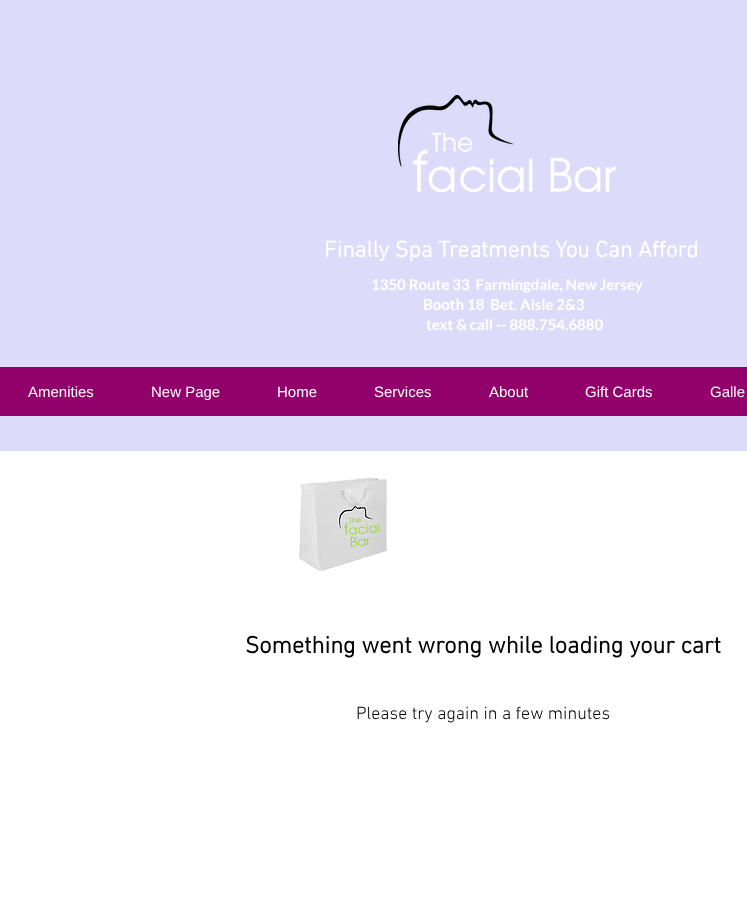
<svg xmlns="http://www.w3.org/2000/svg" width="747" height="914">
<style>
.a{font:bold 23px 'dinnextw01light';fill:#fff}
.b{font:bold 15px Lato;fill:#fff}
.c{font:15px Liberation Sans;fill:#fff}
.d{font:bold 24px 'dinnextw01light';fill:#000}
.e{font:300 18px 'dinnextw01light';fill:#000}
</style>
<rect width="100%" height="100%" fill="#dcdcfa"/>
<image href="1.png" x="398" y="95" width="218" height="97"/>
<path fill="#92006b" d="M0 367h747v49H0z"/>
<path fill="#fff" d="M0 451h747v463H0z"/>
<image href="2.png" x="299" y="477" width="88" height="94"/>
<text class="a" x="324" y="257">Finally Spa Treatments You Can Afford</text>
<text class="b" xml:space="preserve" x="371" y="290">1350 Route 33  Farmingdale, New Jersey</text>
<text class="b" xml:space="preserve" x="423" y="310">Booth 18  Bet. Aisle 2&amp;3</text>
<text class="b" x="426" y="330">text &amp; call -- 888.754.6880</text>
<text class="c" x="28" y="397">Amenities</text>
<text class="c" x="151" y="397">New Page</text>
<text class="c" x="277" y="397">Home</text>
<text class="c" x="374" y="397">Services</text>
<text class="c" x="489" y="397">About</text>
<text class="c" x="585" y="397">Gift Cards</text>
<text class="c" x="710" y="397">Galle</text>
<text class="d" x="245" y="653">Something went wrong while loading your cart</text>
<text class="e" x="356" y="719">Please try again in a few minutes</text>
</svg>
